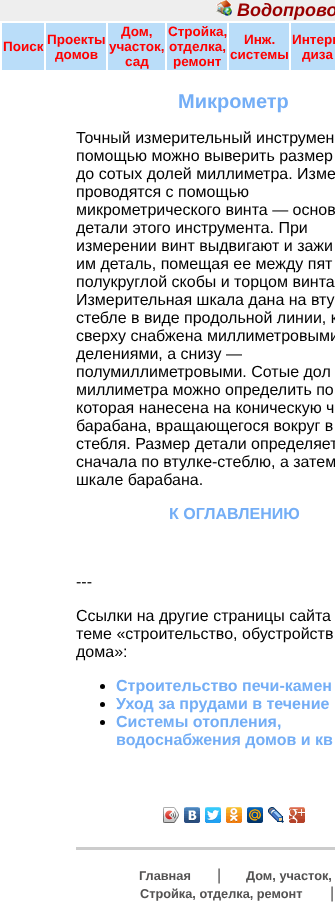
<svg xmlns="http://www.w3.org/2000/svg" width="335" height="903">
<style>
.a{font:italic bold 18px Liberation Sans;fill:#900}
.b{font:bold 13.5px Liberation Sans;fill:#f00}
.c{font:bold 20px Liberation Sans;fill:#74aef6}
.d{font:16px Liberation Sans;fill:#000}
.e{font:bold 16px Liberation Sans;fill:#74aef6}
.f{font:bold 12.75px Liberation Sans;fill:#535252}
.g{font:16px Liberation Sans;fill:#535252}
</style>
<rect width="100%" height="100%" fill="#fff"/>
<path fill="#eee" d="M0 0h335v21H0z"/>
<image href="1.png" x="216" y="0" width="16" height="16"/>
<path fill="#baddf9" d="M2 23h42v47H2z"/>
<path fill="#baddf9" d="M46 23h60v47H46z"/>
<path fill="#baddf9" d="M108 23h57v47H108z"/>
<path fill="#baddf9" d="M167 23h60v47H167z"/>
<path fill="#baddf9" d="M229 23h60v47H229z"/>
<path fill="#baddf9" d="M291 23h44v47H291z"/>
<circle fill="#000" cx="102.5" cy="686.5" r="2.5"/>
<circle fill="#000" cx="102.5" cy="704.5" r="2.5"/>
<circle fill="#000" cx="102.5" cy="722.5" r="2.5"/>
<image href="2.png" x="163" y="807" width="16" height="16"/>
<image href="3.png" x="163" y="807" width="16" height="16"/>
<image href="4.png" x="184" y="807" width="16" height="16"/>
<image href="5.png" x="205" y="807" width="16" height="16"/>
<image href="6.png" x="226" y="807" width="16" height="16"/>
<image href="7.png" x="247" y="807" width="16" height="16"/>
<image href="8.png" x="268" y="807" width="16" height="16"/>
<image href="9.png" x="289" y="807" width="16" height="16"/>
<path fill="#ccc" d="M76 847h259v3H76z"/>
<text class="a" x="237" y="16">Водопрово</text>
<text class="b" x="3" y="51">Поиск</text>
<text class="b" x="47" y="44">Проекты</text>
<text class="b" x="55" y="59">домов</text>
<text class="b" x="121" y="36">Дом,</text>
<text class="b" x="109" y="51">участок,</text>
<text class="b" x="125" y="66">сад</text>
<text class="b" x="168" y="36">Стройка,</text>
<text class="b" x="169" y="51">отделка,</text>
<text class="b" x="173" y="66">ремонт</text>
<text class="b" x="244" y="44">Инж.</text>
<text class="b" x="230" y="59">системы</text>
<text class="b" x="292" y="44">Интерь</text>
<text class="b" x="302" y="59">диза</text>
<text class="c" x="178" y="108">Микрометр</text>
<text class="d" x="76" y="143">Точный измерительный инструмен</text>
<text class="d" x="76" y="161">помощью можно выверить размер</text>
<text class="d" x="76" y="179">до сотых долей миллиметра. Изме</text>
<text class="d" x="76" y="197">проводятся с помощью</text>
<text class="d" x="76" y="215">микрометрического винта — основ</text>
<text class="d" x="76" y="233">детали этого инструмента. При</text>
<text class="d" x="76" y="251">измерении винт выдвигают и зажи</text>
<text class="d" x="76" y="269">им деталь, помещая ее между пят</text>
<text class="d" x="76" y="287">полукруглой скобы и торцом винта</text>
<text class="d" x="76" y="305">Измерительная шкала дана на вту</text>
<text class="d" x="76" y="323">стебле в виде продольной линии, к</text>
<text class="d" x="76" y="341">сверху снабжена миллиметровыми</text>
<text class="d" x="76" y="359">делениями, а снизу —</text>
<text class="d" x="76" y="377">полумиллиметровыми. Сотые дол</text>
<text class="d" x="76" y="395">миллиметра можно определить по</text>
<text class="d" x="76" y="413">которая нанесена на коническую ч</text>
<text class="d" x="76" y="431">барабана, вращающегося вокруг в</text>
<text class="d" x="76" y="449">стебля. Размер детали определяет</text>
<text class="d" x="76" y="467">сначала по втулке-стеблю, а затем</text>
<text class="d" x="76" y="485">шкале барабана.</text>
<text class="e" x="169" y="519">К ОГЛАВЛЕНИЮ</text>
<text class="d" x="76" y="587">---</text>
<text class="d" x="76" y="621">Ссылки на другие страницы сайта</text>
<text class="d" x="76" y="639">теме «строительство, обустройств</text>
<text class="d" x="76" y="657">дома»:</text>
<text class="e" x="116" y="691">Строительство печи-камен</text>
<text class="e" x="116" y="709">Уход за прудами в течение</text>
<text class="e" x="116" y="727">Системы отопления,</text>
<text class="e" x="116" y="745">водоснабжения домов и кв</text>
<text class="f" x="139" y="880">Главная</text>
<text class="g" x="217" y="880">|</text>
<text class="f" x="246" y="880">Дом, участок,</text>
<text class="f" x="140" y="898">Стройка, отделка, ремонт</text>
<text class="g" x="330" y="898">|</text>
</svg>
